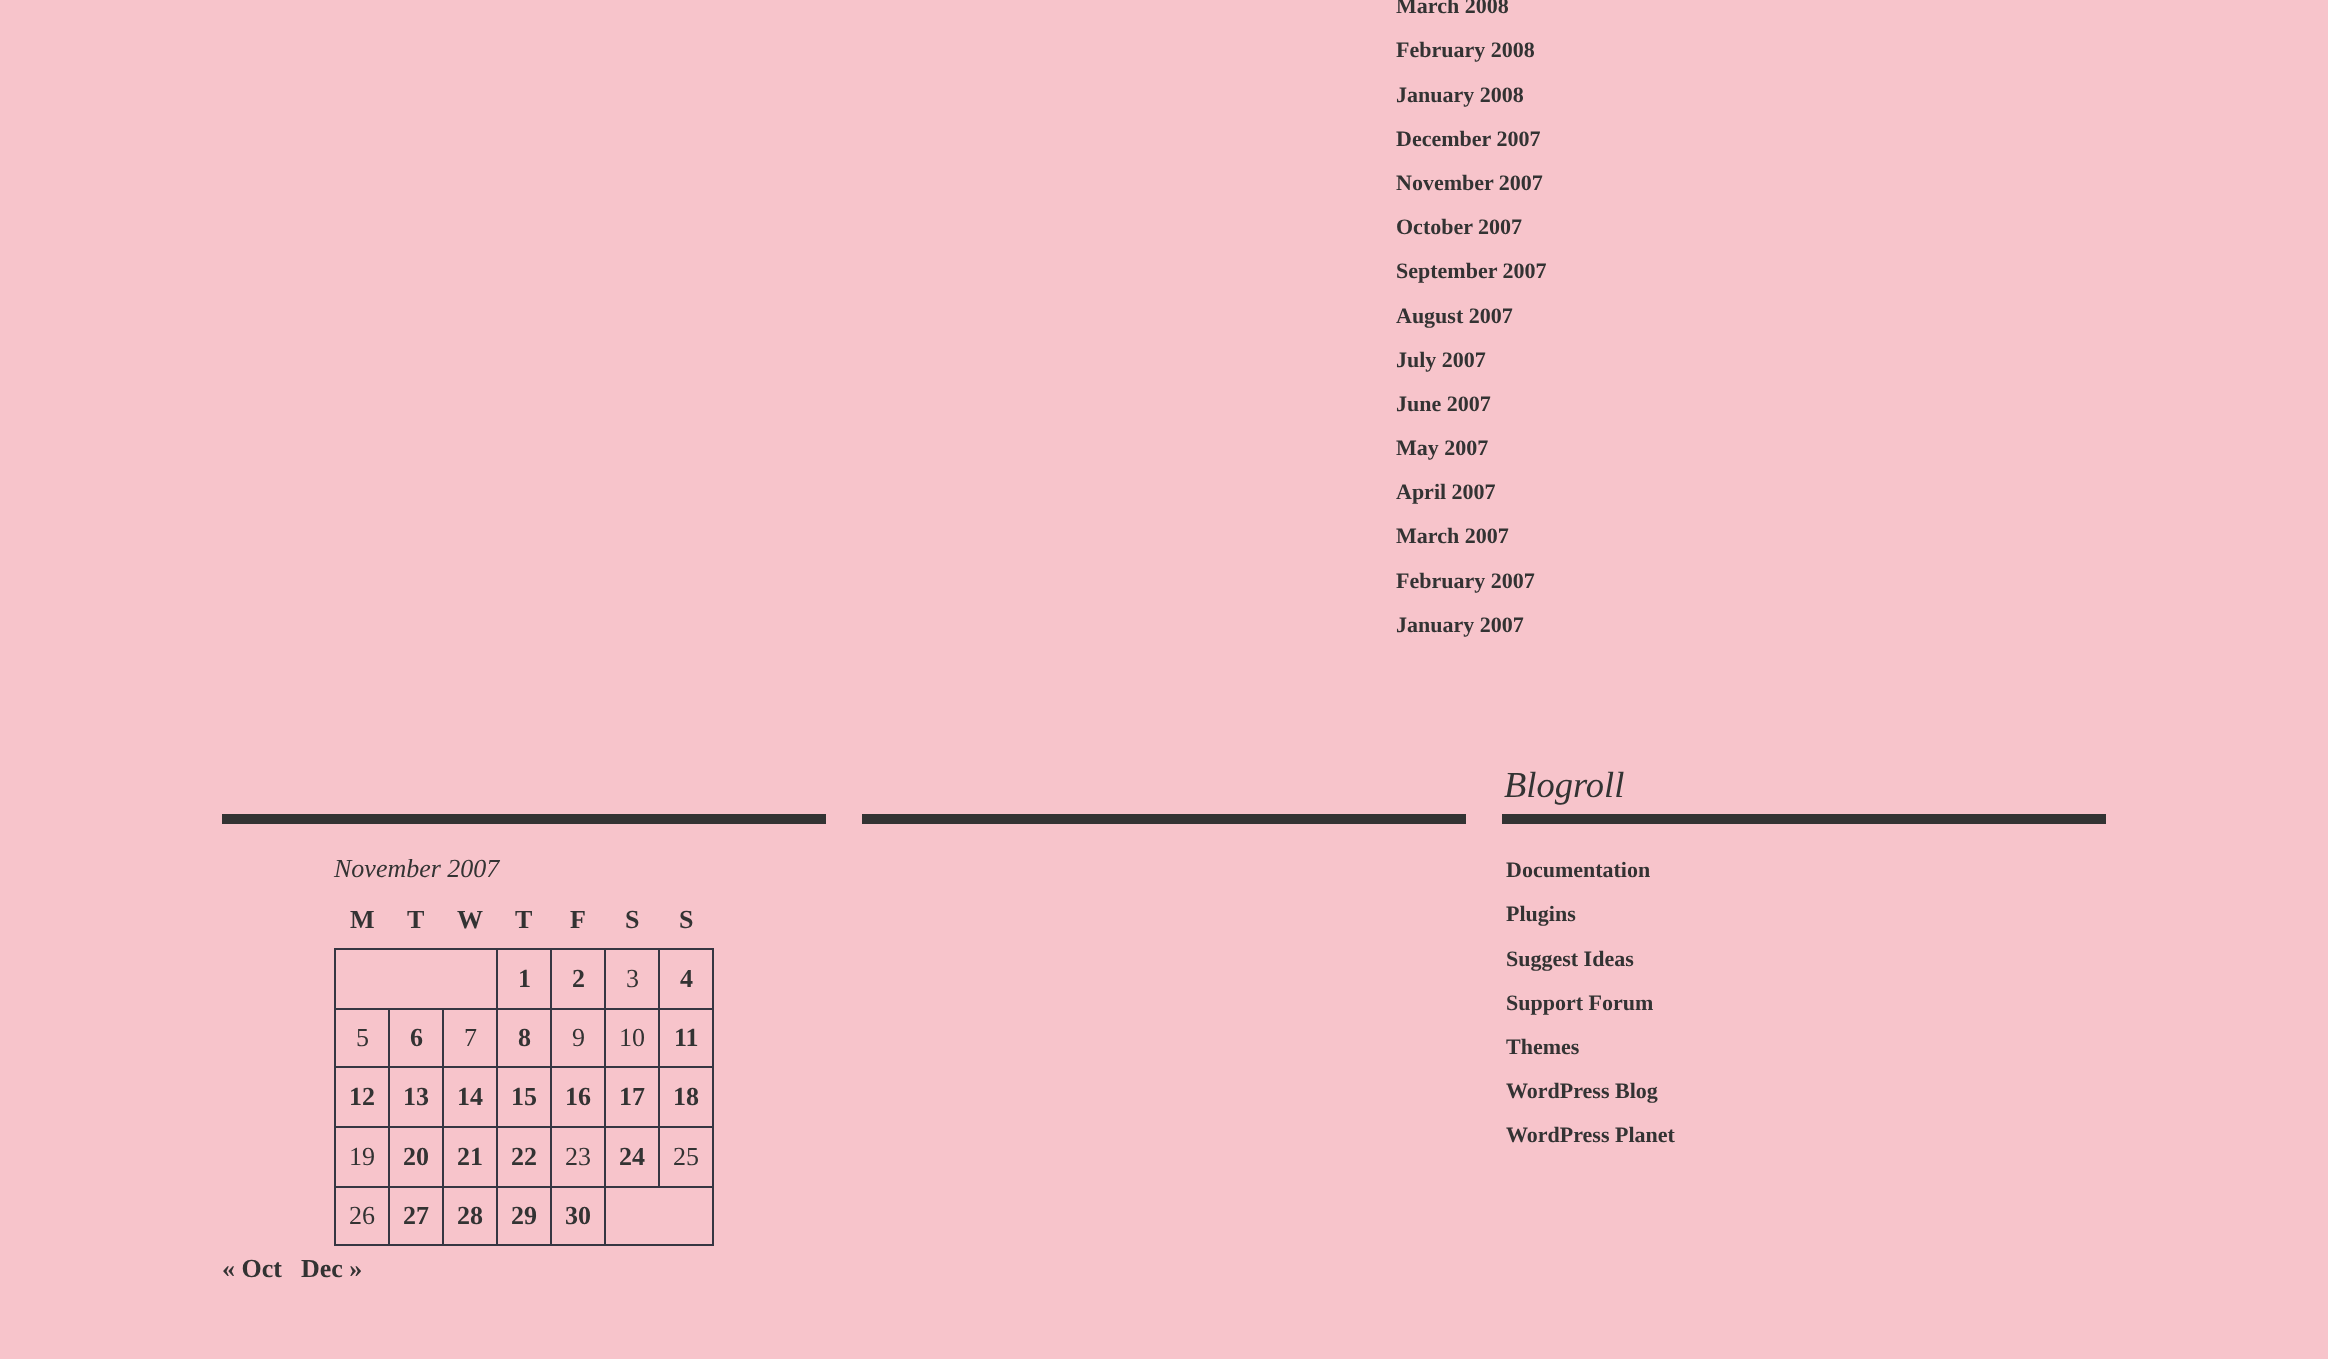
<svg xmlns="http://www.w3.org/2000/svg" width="2328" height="1359">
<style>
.a{font:bold 22px Liberation Serif;fill:#333}
.b{font:italic 36.5px Liberation Serif;fill:#333}
.c{font:italic 26px Liberation Serif;fill:#333}
.d{font:bold 26px Liberation Serif;fill:#333}
.e{font:26px Liberation Serif;fill:#333}
</style>
<rect width="100%" height="100%" fill="#f7c4cb"/>
<path fill="#333" d="M862 814h604v10H862z"/>
<path fill="#333" d="M1502 814h604v10H1502z"/>
<path fill="#333" d="M222 814h604v10H222z"/>
<path fill="#363642" d="M658 948h56v2H658z"/>
<path fill="#363642" d="M658 1008h56v2H658z"/>
<path fill="#363642" d="M658 1066h56v2H658z"/>
<path fill="#363642" d="M658 1126h56v2H658z"/>
<path fill="#363642" d="M604 1186h110v2H604z"/>
<path fill="#363642" d="M658 1126h2v62H658z"/>
<path fill="#363642" d="M604 1126h56v2H604z"/>
<path fill="#363642" d="M658 1066h2v62H658z"/>
<path fill="#363642" d="M604 1066h56v2H604z"/>
<path fill="#363642" d="M658 1008h2v60H658z"/>
<path fill="#363642" d="M604 1008h56v2H604z"/>
<path fill="#363642" d="M658 948h2v62H658z"/>
<path fill="#363642" d="M604 948h56v2H604z"/>
<path fill="#363642" d="M712 1186h2v60H712z"/>
<path fill="#363642" d="M604 1244h110v2H604z"/>
<path fill="#363642" d="M604 1186h2v60H604z"/>
<path fill="#363642" d="M550 1186h56v2H550z"/>
<path fill="#363642" d="M604 1126h2v62H604z"/>
<path fill="#363642" d="M550 1126h56v2H550z"/>
<path fill="#363642" d="M604 1066h2v62H604z"/>
<path fill="#363642" d="M550 1066h56v2H550z"/>
<path fill="#363642" d="M604 1008h2v60H604z"/>
<path fill="#363642" d="M550 1008h56v2H550z"/>
<path fill="#363642" d="M604 948h2v62H604z"/>
<path fill="#363642" d="M550 948h56v2H550z"/>
<path fill="#363642" d="M550 1244h56v2H550z"/>
<path fill="#363642" d="M550 1186h2v60H550z"/>
<path fill="#363642" d="M496 1186h56v2H496z"/>
<path fill="#363642" d="M550 1126h2v62H550z"/>
<path fill="#363642" d="M496 1126h56v2H496z"/>
<path fill="#363642" d="M550 1066h2v62H550z"/>
<path fill="#363642" d="M496 1066h56v2H496z"/>
<path fill="#363642" d="M550 1008h2v60H550z"/>
<path fill="#363642" d="M496 1008h56v2H496z"/>
<path fill="#363642" d="M550 948h2v62H550z"/>
<path fill="#363642" d="M496 948h56v2H496z"/>
<path fill="#363642" d="M496 1244h56v2H496z"/>
<path fill="#363642" d="M496 1186h2v60H496z"/>
<path fill="#363642" d="M442 1186h56v2H442z"/>
<path fill="#363642" d="M496 1126h2v62H496z"/>
<path fill="#363642" d="M442 1126h56v2H442z"/>
<path fill="#363642" d="M496 1066h2v62H496z"/>
<path fill="#363642" d="M442 1066h56v2H442z"/>
<path fill="#363642" d="M496 1008h2v60H496z"/>
<path fill="#363642" d="M442 1008h56v2H442z"/>
<path fill="#363642" d="M496 948h2v62H496z"/>
<path fill="#363642" d="M334 948h164v2H334z"/>
<path fill="#363642" d="M442 1244h56v2H442z"/>
<path fill="#363642" d="M442 1186h2v60H442z"/>
<path fill="#363642" d="M388 1186h56v2H388z"/>
<path fill="#363642" d="M442 1126h2v62H442z"/>
<path fill="#363642" d="M388 1126h56v2H388z"/>
<path fill="#363642" d="M442 1066h2v62H442z"/>
<path fill="#363642" d="M388 1066h56v2H388z"/>
<path fill="#363642" d="M442 1008h2v60H442z"/>
<path fill="#363642" d="M388 1008h56v2H388z"/>
<path fill="#363642" d="M388 1244h56v2H388z"/>
<path fill="#363642" d="M388 1186h2v60H388z"/>
<path fill="#363642" d="M334 1186h56v2H334z"/>
<path fill="#363642" d="M388 1126h2v62H388z"/>
<path fill="#363642" d="M334 1126h56v2H334z"/>
<path fill="#363642" d="M388 1066h2v62H388z"/>
<path fill="#363642" d="M334 1066h56v2H334z"/>
<path fill="#363642" d="M388 1008h2v60H388z"/>
<path fill="#363642" d="M334 1008h56v2H334z"/>
<path fill="#363642" d="M334 1244h56v2H334z"/>
<path fill="#363642" d="M334 1186h2v60H334z"/>
<path fill="#363642" d="M334 1126h2v62H334z"/>
<path fill="#363642" d="M334 1066h2v62H334z"/>
<path fill="#363642" d="M334 1008h2v60H334z"/>
<path fill="#363642" d="M334 948h2v62H334z"/>
<path fill="#363642" d="M712 1126h2v62H712z"/>
<path fill="#363642" d="M712 1066h2v62H712z"/>
<path fill="#363642" d="M712 1008h2v60H712z"/>
<path fill="#363642" d="M712 948h2v62H712z"/>
<text class="a" x="1396" y="13">March 2008</text>
<text class="a" x="1396" y="57">February 2008</text>
<text class="a" x="1396" y="102">January 2008</text>
<text class="a" x="1396" y="146">December 2007</text>
<text class="a" x="1396" y="190">November 2007</text>
<text class="a" x="1396" y="234">October 2007</text>
<text class="a" x="1396" y="278">September 2007</text>
<text class="a" x="1396" y="323">August 2007</text>
<text class="a" x="1396" y="367">July 2007</text>
<text class="a" x="1396" y="411">June 2007</text>
<text class="a" x="1396" y="455">May 2007</text>
<text class="a" x="1396" y="499">April 2007</text>
<text class="a" x="1396" y="543">March 2007</text>
<text class="a" x="1396" y="588">February 2007</text>
<text class="a" x="1396" y="632">January 2007</text>
<text class="b" x="1504" y="797">Blogroll</text>
<text class="a" x="1506" y="877">Documentation</text>
<text class="a" x="1506" y="921">Plugins</text>
<text class="a" x="1506" y="966">Suggest Ideas</text>
<text class="a" x="1506" y="1010">Support Forum</text>
<text class="a" x="1506" y="1054">Themes</text>
<text class="a" x="1506" y="1098">WordPress Blog</text>
<text class="a" x="1506" y="1142">WordPress Planet</text>
<text class="c" x="334" y="877">November 2007</text>
<text class="d" x="350" y="928">M</text>
<text class="d" x="407" y="928">T</text>
<text class="d" x="457" y="928">W</text>
<text class="d" x="515" y="928">T</text>
<text class="d" x="570" y="928">F</text>
<text class="d" x="625" y="928">S</text>
<text class="d" x="679" y="928">S</text>
<text class="d" x="518" y="987">1</text>
<text class="d" x="572" y="987">2</text>
<text class="e" x="626" y="987">3</text>
<text class="d" x="680" y="987">4</text>
<text class="e" x="356" y="1046">5</text>
<text class="d" x="410" y="1046">6</text>
<text class="e" x="464" y="1046">7</text>
<text class="d" x="518" y="1046">8</text>
<text class="e" x="572" y="1046">9</text>
<text class="e" x="619" y="1046">10</text>
<text class="d" x="674" y="1046">11</text>
<text class="d" x="349" y="1105">12</text>
<text class="d" x="403" y="1105">13</text>
<text class="d" x="457" y="1105">14</text>
<text class="d" x="511" y="1105">15</text>
<text class="d" x="565" y="1105">16</text>
<text class="d" x="619" y="1105">17</text>
<text class="d" x="673" y="1105">18</text>
<text class="e" x="349" y="1165">19</text>
<text class="d" x="403" y="1165">20</text>
<text class="d" x="457" y="1165">21</text>
<text class="d" x="511" y="1165">22</text>
<text class="e" x="565" y="1165">23</text>
<text class="d" x="619" y="1165">24</text>
<text class="e" x="673" y="1165">25</text>
<text class="e" x="349" y="1224">26</text>
<text class="d" x="403" y="1224">27</text>
<text class="d" x="457" y="1224">28</text>
<text class="d" x="511" y="1224">29</text>
<text class="d" x="565" y="1224">30</text>
<text class="d" x="222" y="1277">« Oct</text>
<text class="d" x="301" y="1277">Dec »</text>
</svg>
